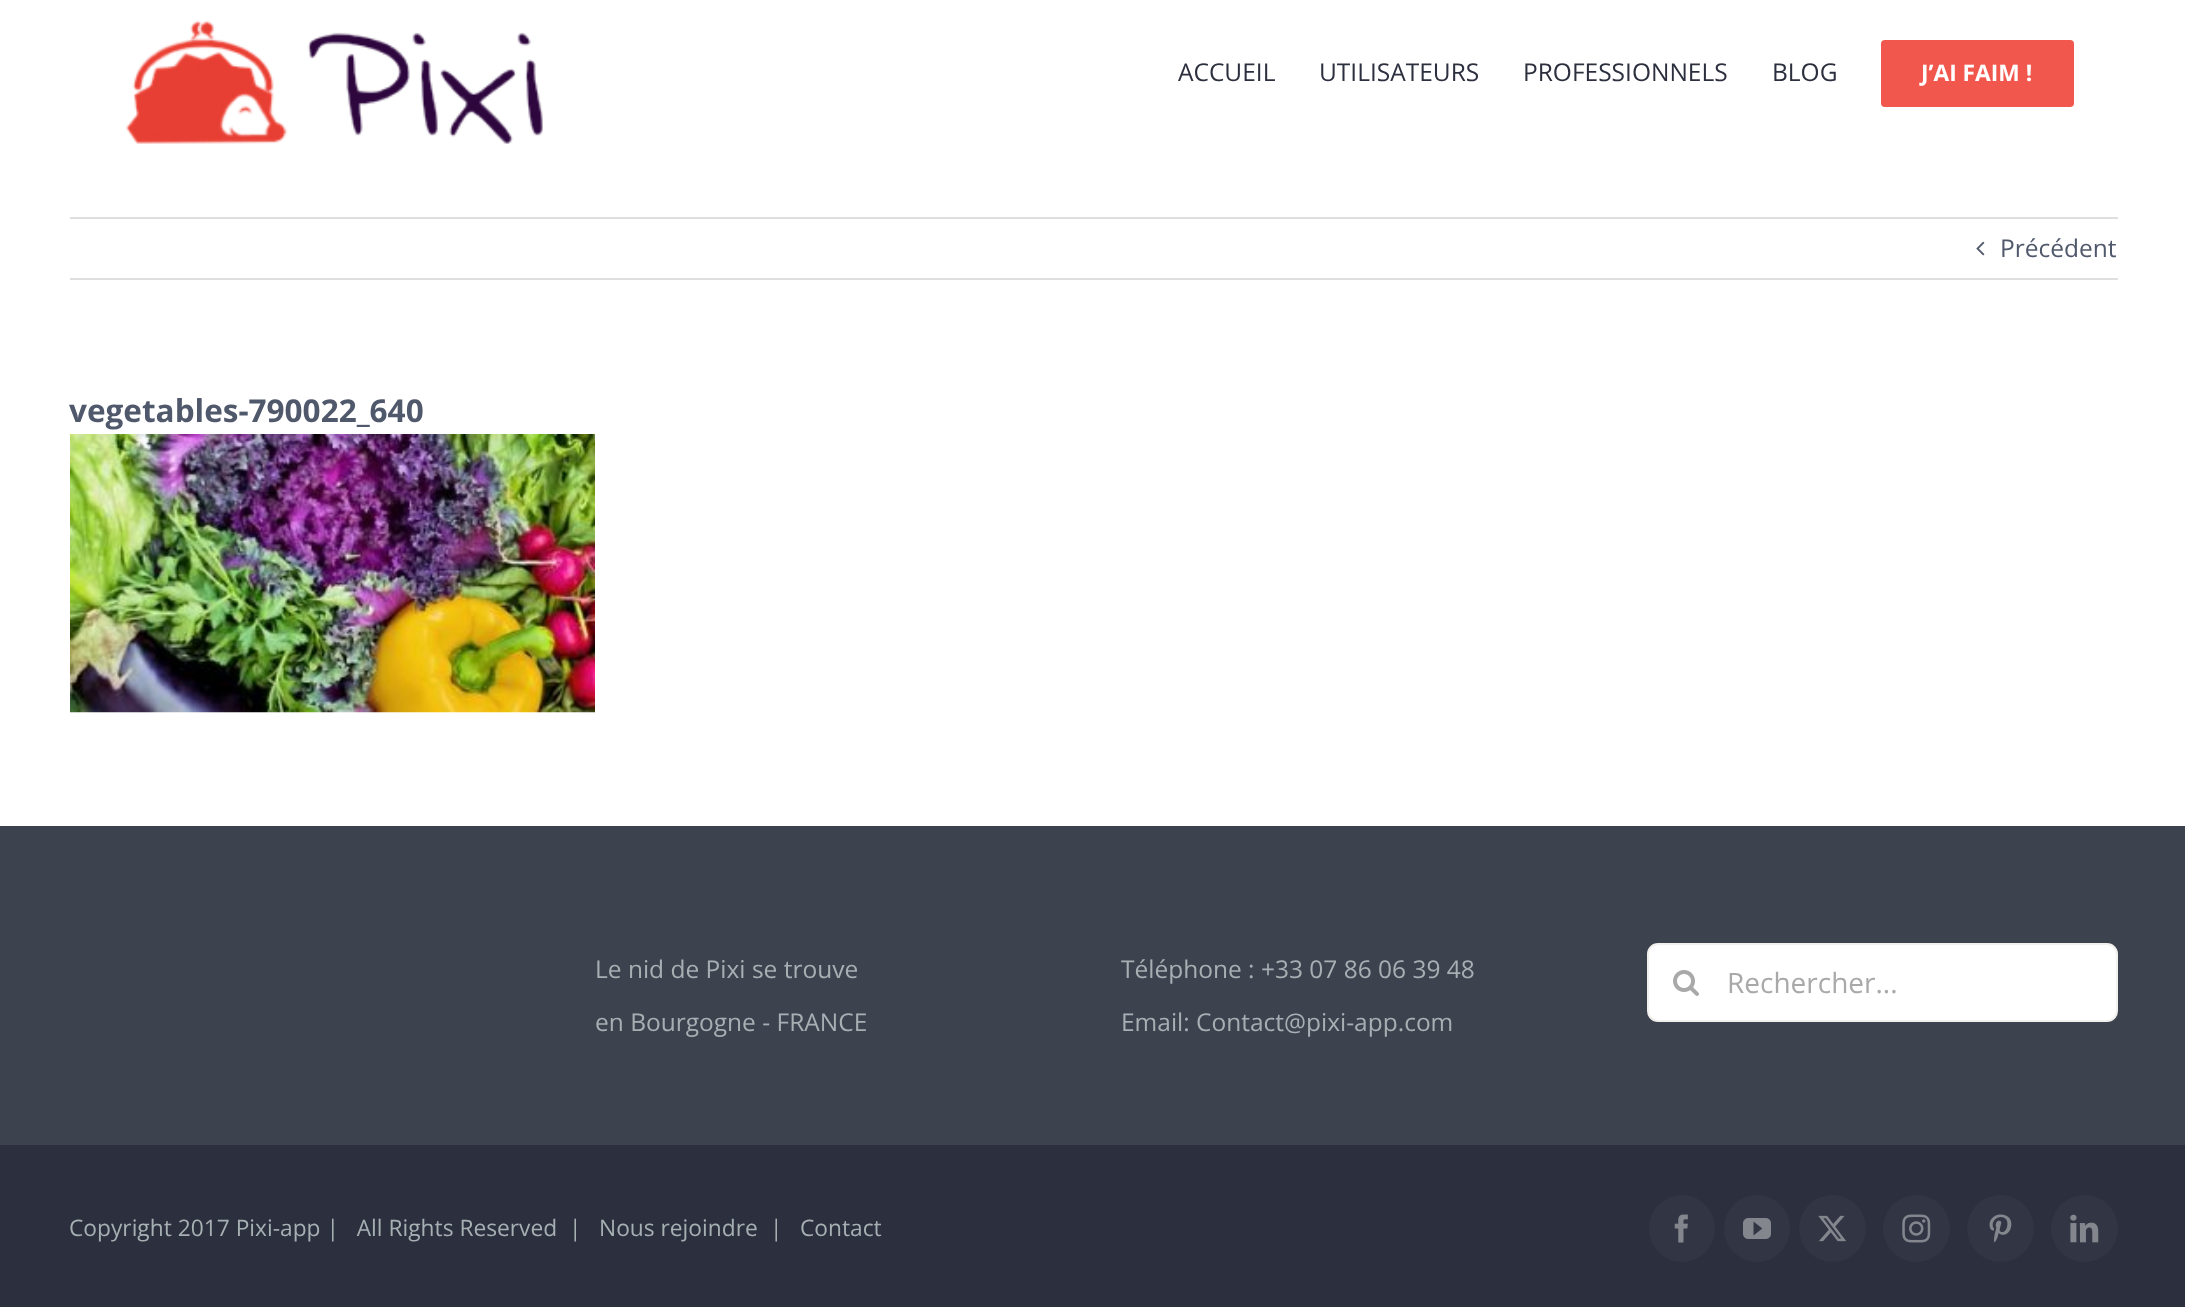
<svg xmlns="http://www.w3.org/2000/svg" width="2185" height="1313">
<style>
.a{font:24.5px Open Sans;fill:#2c2f3e}
.b{font:bold 22.75px Open Sans;fill:#fff}
.c{font:24.5px Open Sans;fill:#50586b}
.d{font:bold 31.5px Open Sans;fill:#50586b}
.e{font:24.5px Open Sans;fill:#a6b0b3}
.f{font:28px Open Sans;fill:#aaa9a9}
.g{font:22.75px Open Sans;fill:#a6b0b3}
</style>
<rect width="100%" height="100%" fill="#fff"/>
<image href="1.png" x="125" y="20" width="418" height="124"/>
<rect fill="#f1574d" x="1881" y="40" width="193" height="67" rx="4"/>
<path fill="#e0dede" d="M70 217h2048v2H70z"/>
<path fill="#e0dede" d="M70 278h2048v2H70z"/>
<image href="2.png" x="1976" y="241" width="9" height="15"/>
<image href="3.png" x="70" y="434" width="525" height="279"/>
<path fill="#3d424f" d="M0 826h2185v319H0z"/>
<rect fill="#fff" stroke="#f1f0ec" stroke-width="2" x="1648" y="944" width="469" height="77" rx="10"/>
<image href="4.png" x="1673" y="970" width="26" height="26"/>
<path fill="#2c2f3e" d="M0 1145h2185v162H0z"/>
<rect fill="#323644" x="1649" y="1195" width="66" height="67" rx="33"/>
<image href="5.png" x="1674" y="1214" width="14" height="29"/>
<rect fill="#323644" x="1724" y="1195" width="66" height="67" rx="33"/>
<image href="6.png" x="1743" y="1218" width="28" height="21"/>
<circle fill="#323644" cx="1832.5" cy="1228.5" r="33.5"/>
<image href="7.png" x="1818" y="1215" width="28" height="27"/>
<circle fill="#323644" cx="1916.5" cy="1228.5" r="33.5"/>
<image href="8.png" x="1902" y="1214" width="29" height="29"/>
<circle fill="#323644" cx="2000.5" cy="1228.5" r="33.5"/>
<image href="9.png" x="1989" y="1214" width="23" height="29"/>
<circle fill="#323644" cx="2084.5" cy="1228.5" r="33.5"/>
<image href="10.png" x="2070" y="1214" width="29" height="29"/>
<text class="a" x="1178" y="81">ACCUEIL</text>
<text class="a" x="1319" y="81">UTILISATEURS</text>
<text class="a" x="1523" y="81">PROFESSIONNELS</text>
<text class="a" x="1772" y="81">BLOG</text>
<text class="b" x="1921" y="81">J’AI FAIM !</text>
<text class="c" x="2000" y="257">Précédent</text>
<text class="d" x="69" y="422">vegetables-790022_640</text>
<text class="e" x="595" y="978">Le nid de Pixi se trouve</text>
<text class="e" x="595" y="1031">en Bourgogne - FRANCE</text>
<text class="e" x="1121" y="978">Téléphone : +33 07 86 06 39 48</text>
<text class="e" x="1121" y="1031">Email: Contact@pixi-app.com</text>
<text class="f" x="1727" y="993">Rechercher...</text>
<text class="g" xml:space="preserve" x="69" y="1236">Copyright 2017 Pixi-app |   All Rights Reserved  |</text>
<text class="g" x="599" y="1236">Nous rejoindre</text>
<text class="g" x="770" y="1236">|</text>
<text class="g" x="800" y="1236">Contact</text>
</svg>
